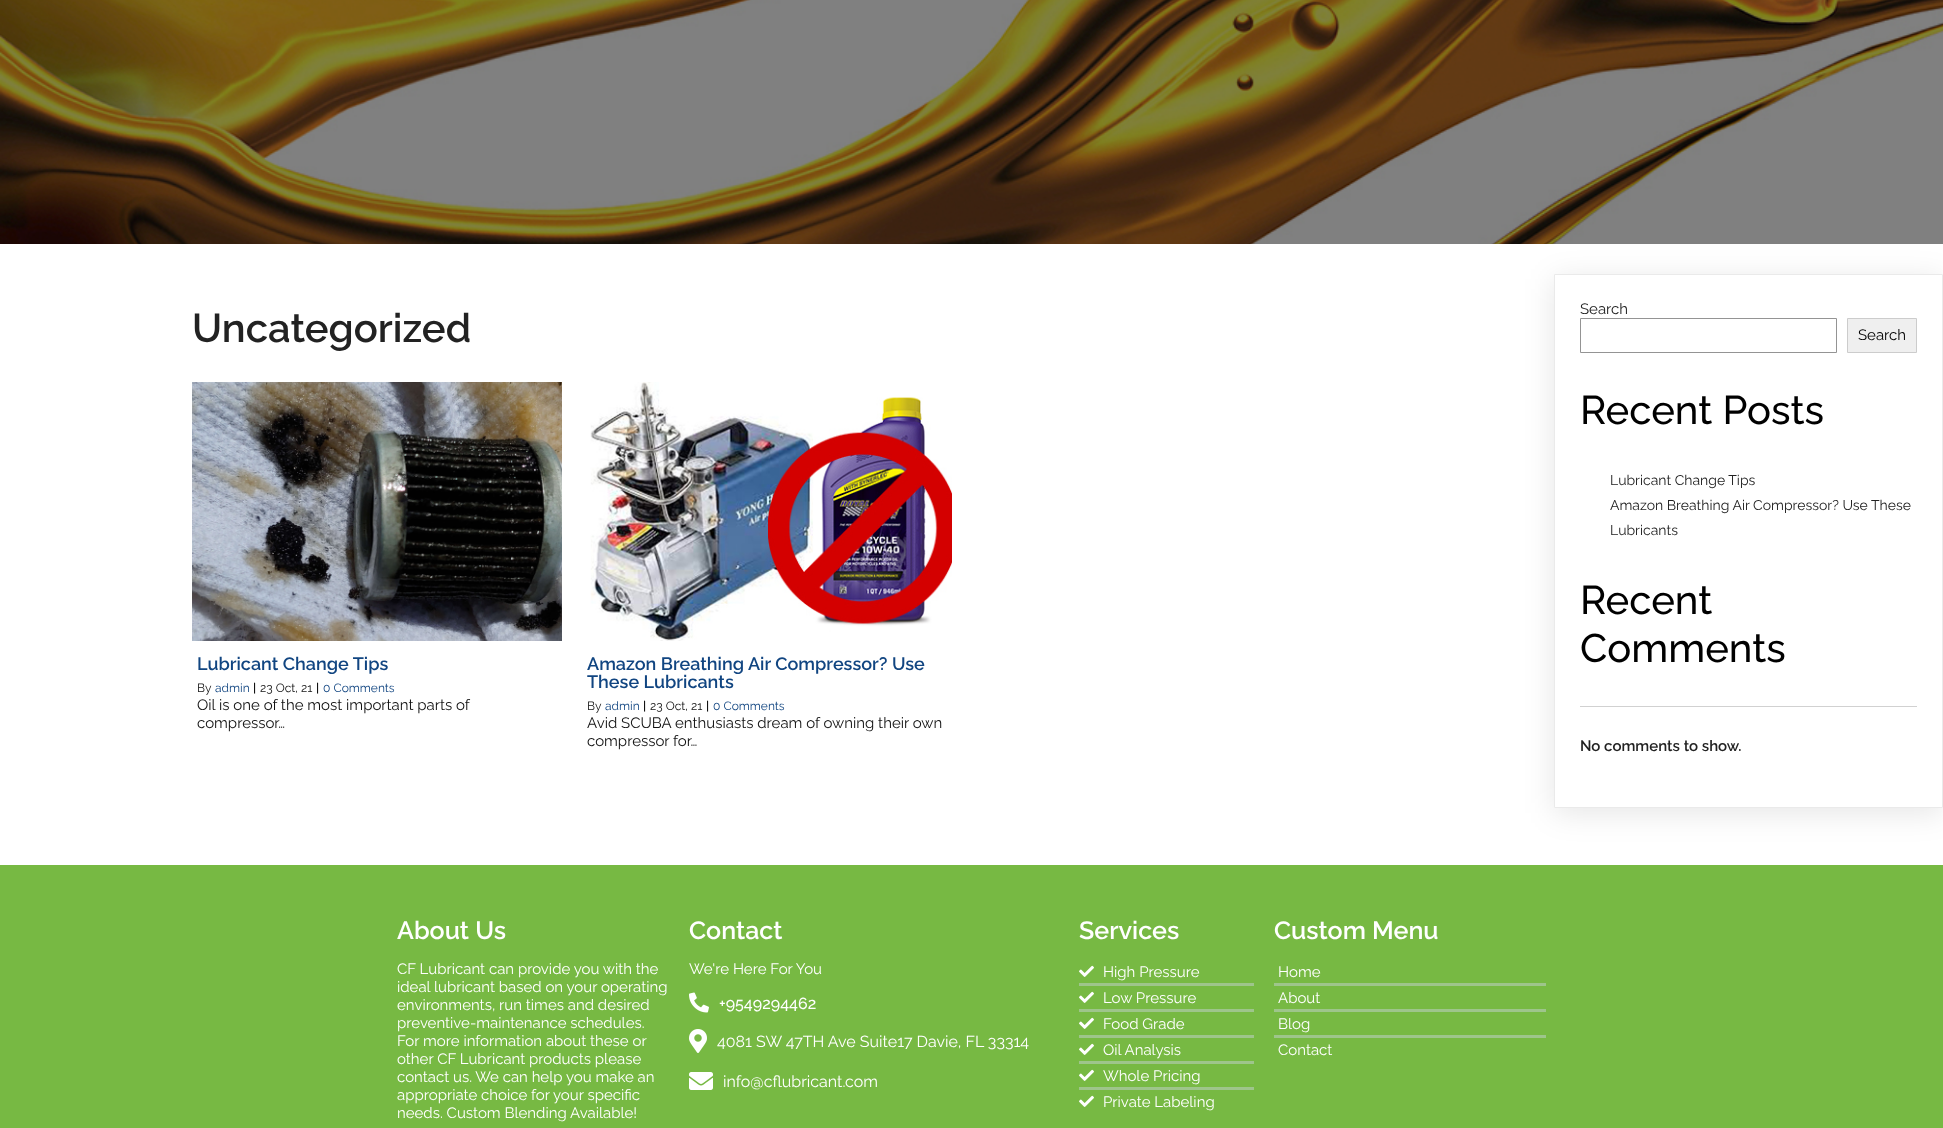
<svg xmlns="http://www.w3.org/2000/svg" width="1943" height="1128">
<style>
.a{font:600 40px Raleway;fill:#222}
.b{font:600 18px Raleway;fill:#114581}
.c{font:12px Raleway;fill:#121212}
.d{font:12px Raleway;fill:#114581}
.e{font:600 12px Raleway;fill:#121212}
.f{font:15px Raleway;fill:#121212}
.g{font:15px Raleway;fill:#222}
.h{font:15px Raleway;fill:#000}
.i{font:500 40px Raleway;fill:#000}
.j{font:14px Raleway;fill:#222}
.k{font:600 15px Raleway;fill:#222}
.l{font:600 25px Raleway;fill:#fff}
.m{font:15px Raleway;fill:#fff}
.n{font:500 16px Raleway;fill:#fff}
.o{font:16px Raleway;fill:#fff}
</style>
<defs>
<clipPath id="clip1"><path d="M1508 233h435v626h-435zm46 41h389v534h-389z" clip-rule="evenodd"/></clipPath>
</defs>
<rect width="100%" height="100%" fill="#fff"/>
<g clip-path="url(#clip1)">
<path fill="#0000001a" filter="blur(15px)" d="M1554 279h389v534H1554z"/>
</g>
<image href="1.png" x="0" y="0" width="1943" height="244"/>
<image href="2.png" x="192" y="382" width="370" height="259"/>
<image href="3.png" x="590" y="382" width="362" height="259"/>
<path fill="none" stroke="#eaeaea" d="M1554.5 274.5h388v533H1554.5z"/>
<path fill="none" stroke="#949494" d="M1580.5 318.5h256v34H1580.5z"/>
<path fill="#efefef" stroke="#ccc" d="M1847.5 318.5h69v34H1847.5z"/>
<path fill="#d1d1d1" d="M1580 706h337v1H1580z"/>
<path fill="#77b943" d="M0 865h1943v263H0z"/>
<image href="4.png" x="689" y="992" width="20" height="21"/>
<image href="5.png" x="689" y="1029" width="18" height="24"/>
<image href="6.png" x="689" y="1072" width="24" height="18"/>
<path fill="#9ec58b" d="M1079 983h175v3H1079z"/>
<image href="7.png" x="1079" y="965" width="15" height="12"/>
<path fill="#9ec58b" d="M1079 1009h175v3H1079z"/>
<image href="7.png" x="1079" y="991" width="15" height="12"/>
<path fill="#9ec58b" d="M1079 1035h175v3H1079z"/>
<image href="7.png" x="1079" y="1017" width="15" height="12"/>
<path fill="#9ec58b" d="M1079 1061h175v3H1079z"/>
<image href="7.png" x="1079" y="1043" width="15" height="12"/>
<path fill="#9ec58b" d="M1079 1087h175v3H1079z"/>
<image href="7.png" x="1079" y="1069" width="15" height="12"/>
<image href="7.png" x="1079" y="1095" width="15" height="12"/>
<path fill="#9ec58b" d="M1274 983h272v3H1274z"/>
<path fill="#9ec58b" d="M1274 1009h272v3H1274z"/>
<path fill="#9ec58b" d="M1274 1035h272v3H1274z"/>
<text class="a" x="192" y="342">Uncategorized</text>
<text class="b" x="197" y="670">Lubricant Change Tips</text>
<text class="c" x="197" y="692">By</text>
<text class="d" x="215" y="692">admin</text>
<text class="e" x="253" y="692">|</text>
<text class="c" x="260" y="692">23 Oct, 21</text>
<text class="e" x="316" y="692">|</text>
<text class="d" x="323" y="692">0 Comments</text>
<text class="f" x="197" y="710">Oil is one of the most important parts of</text>
<text class="f" x="197" y="728">compressor…</text>
<text class="b" x="587" y="670">Amazon Breathing Air Compressor? Use</text>
<text class="b" x="587" y="688">These Lubricants</text>
<text class="c" x="587" y="710">By</text>
<text class="d" x="605" y="710">admin</text>
<text class="e" x="643" y="710">|</text>
<text class="c" x="650" y="710">23 Oct, 21</text>
<text class="e" x="706" y="710">|</text>
<text class="d" x="713" y="710">0 Comments</text>
<text class="f" x="587" y="728">Avid SCUBA enthusiasts dream of owning their own</text>
<text class="f" x="587" y="746">compressor for…</text>
<text class="g" x="1580" y="314">Search</text>
<text class="h" x="1858" y="340">Search</text>
<text class="i" x="1580" y="424">Recent Posts</text>
<text class="j" x="1610" y="485">Lubricant Change Tips</text>
<text class="j" x="1610" y="510">Amazon Breathing Air Compressor? Use These</text>
<text class="j" x="1610" y="535">Lubricants</text>
<text class="i" x="1580" y="614">Recent</text>
<text class="i" x="1580" y="662">Comments</text>
<text class="k" x="1580" y="751">No comments to show.</text>
<text class="l" x="397" y="939">About Us</text>
<text class="m" x="397" y="974">CF Lubricant can provide you with the</text>
<text class="m" x="397" y="992">ideal lubricant based on your operating</text>
<text class="m" x="397" y="1010">environments, run times and desired</text>
<text class="m" x="397" y="1028">preventive-maintenance schedules.</text>
<text class="m" x="397" y="1046">For more information about these or</text>
<text class="m" x="397" y="1064">other CF Lubricant products please</text>
<text class="m" x="397" y="1082">contact us. We can help you make an</text>
<text class="m" x="397" y="1100">appropriate choice for your specific</text>
<text class="m" x="397" y="1118">needs. Custom Blending Available!</text>
<text class="l" x="689" y="939">Contact</text>
<text class="m" x="689" y="974">We're Here For You</text>
<text class="n" x="719" y="1009">+9549294462</text>
<text class="o" x="717" y="1047">4081 SW 47TH Ave Suite17 Davie, FL 33314</text>
<text class="o" x="723" y="1087">info@cflubricant.com</text>
<text class="l" x="1079" y="939">Services</text>
<text class="m" x="1103" y="977">High Pressure</text>
<text class="m" x="1103" y="1003">Low Pressure</text>
<text class="m" x="1103" y="1029">Food Grade</text>
<text class="m" x="1103" y="1055">Oil Analysis</text>
<text class="m" x="1103" y="1081">Whole Pricing</text>
<text class="m" x="1103" y="1107">Private Labeling</text>
<text class="l" x="1274" y="939">Custom Menu</text>
<text class="m" x="1278" y="977">Home</text>
<text class="m" x="1278" y="1003">About</text>
<text class="m" x="1278" y="1029">Blog</text>
<text class="m" x="1278" y="1055">Contact</text>
</svg>
